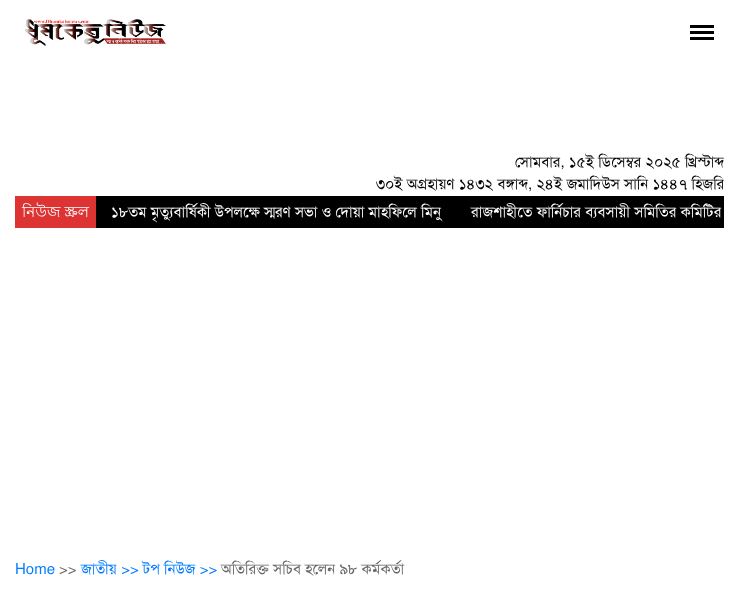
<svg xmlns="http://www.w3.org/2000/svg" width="739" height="595">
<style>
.a{font:15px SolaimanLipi;fill:#000}
.b{font:15px Lohit Bengali;fill:#fff}
.c{font:15px SolaimanLipi;fill:#fff}
.d{font:15px SolaimanLipi;fill:#007bff}
.e{font:15px SolaimanLipi;fill:#666}
</style>
<rect width="100%" height="100%" fill="#fff"/>
<image href="1.png" x="25" y="19" width="141" height="27"/>
<path fill="#000" d="M690 31h24v3H690z"/>
<path fill="#000" d="M690 25h24v3H690z"/>
<path fill="#000" d="M690 37h24v3H690z"/>
<path fill="#d33" d="M15 196h81v32H15z"/>
<path fill="#000" d="M96 196h628v32H96z"/>
<text class="a" x="515" y="167">সোমবার, ১৫ই ডিসেম্বর ২০২৫ খ্রিস্টাব্দ</text>
<text class="a" x="376" y="189">৩০ই অগ্রহায়ণ ১৪৩২ বঙ্গাব্দ, ২৪ই জমাদিউস সানি ১৪৪৭ হিজরি</text>
<text class="b" x="22" y="217">নিউজ স্ক্রল</text>
<text class="c" x="111" y="217">১৮তম মৃত্যুবার্ষিকী উপলক্ষে স্মরণ সভা ও দোয়া মাহফিলে মিনু</text>
<text class="c" x="471" y="217">রাজশাহীতে ফার্নিচার ব্যবসায়ী সমিতির কমিটির</text>
<text class="d" x="15" y="574">Home</text>
<text class="e" x="59" y="574">&gt;&gt;</text>
<text class="d" x="81" y="574">জাতীয় &gt;&gt; টপ নিউজ &gt;&gt;</text>
<text class="e" x="221" y="574">অতিরিক্ত সচিব হলেন ৯৮ কর্মকর্তা</text>
</svg>
